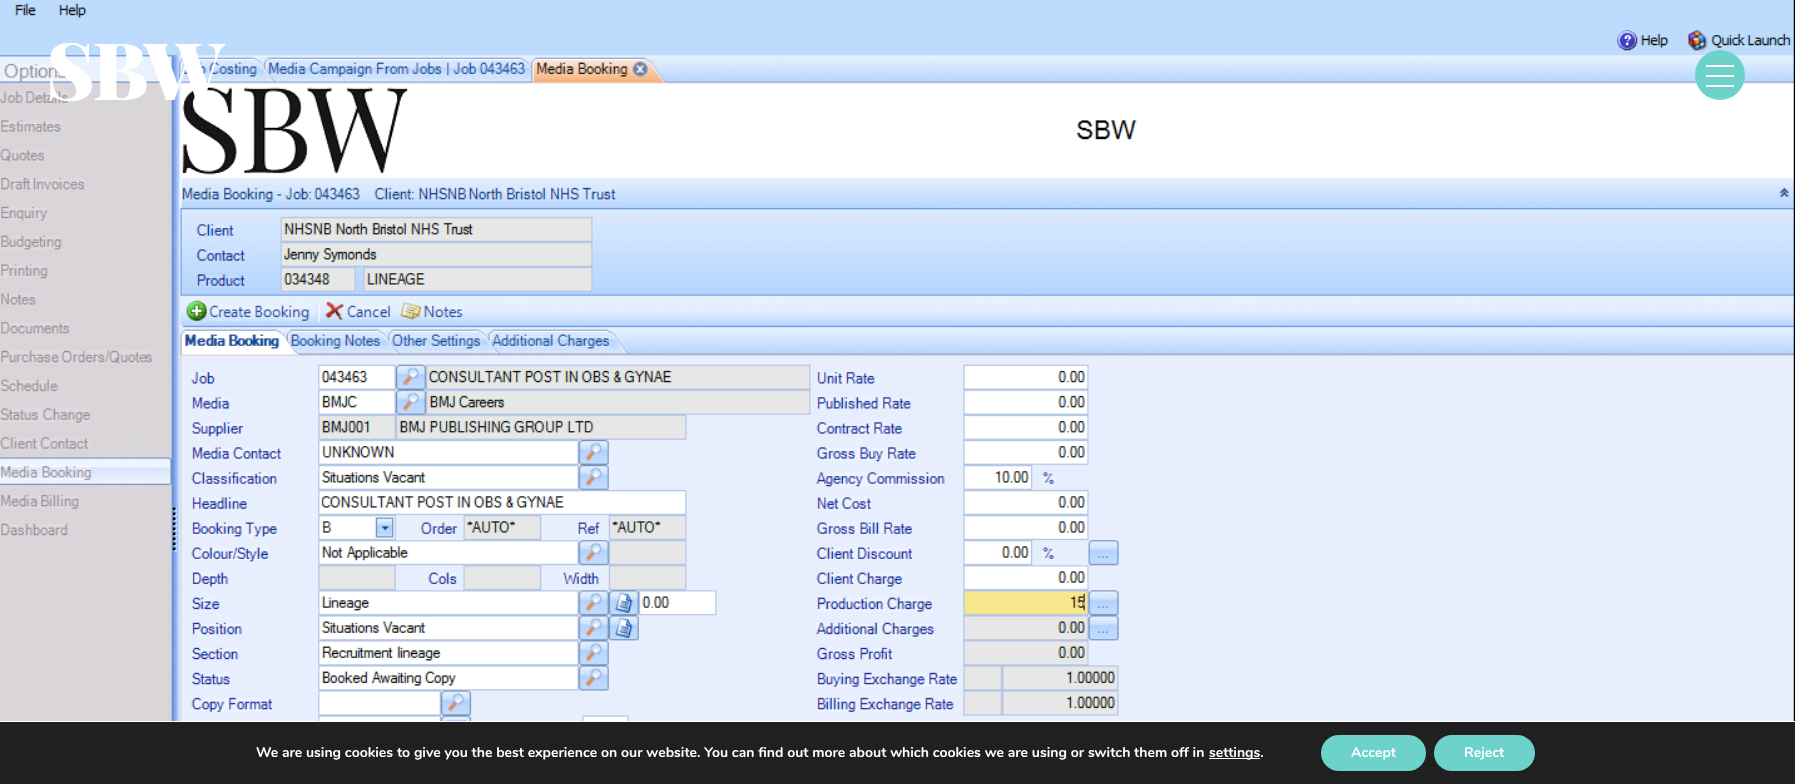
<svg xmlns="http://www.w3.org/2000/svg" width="1795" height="784">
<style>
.a{font:bold 14px Nunito;fill:#fff}
</style>
<rect width="100%" height="100%" fill="#fff"/>
<image href="1.png" x="0" y="0" width="1795" height="721"/>
<image href="2.png" x="50" y="43" width="175" height="58"/>
<circle fill="#6dd2ca" cx="1720" cy="75" r="25"/>
<path fill="#fff" d="M1706 65h28v2H1706z"/>
<path fill="#fff" d="M1706 75h28v2H1706z"/>
<path fill="#fff" d="M1706 85h28v2H1706z"/>
<path fill="#202020" d="M0 722h1795v62H0z"/>
<path fill="#fff" d="M1209 758h51v1H1209z"/>
<rect fill="#6dd2ca" x="1321" y="735" width="105" height="36" rx="18"/>
<rect fill="#6dd2ca" x="1434" y="735" width="101" height="36" rx="18"/>
<text class="a" x="256" y="757">We are using cookies to give you the best experience on our website. You can find out more about which cookies we are using or switch them off in</text>
<text class="a" x="1209" y="757">settings.</text>
<text class="a" x="1351" y="757">Accept</text>
<text class="a" x="1464" y="757">Reject</text>
</svg>
